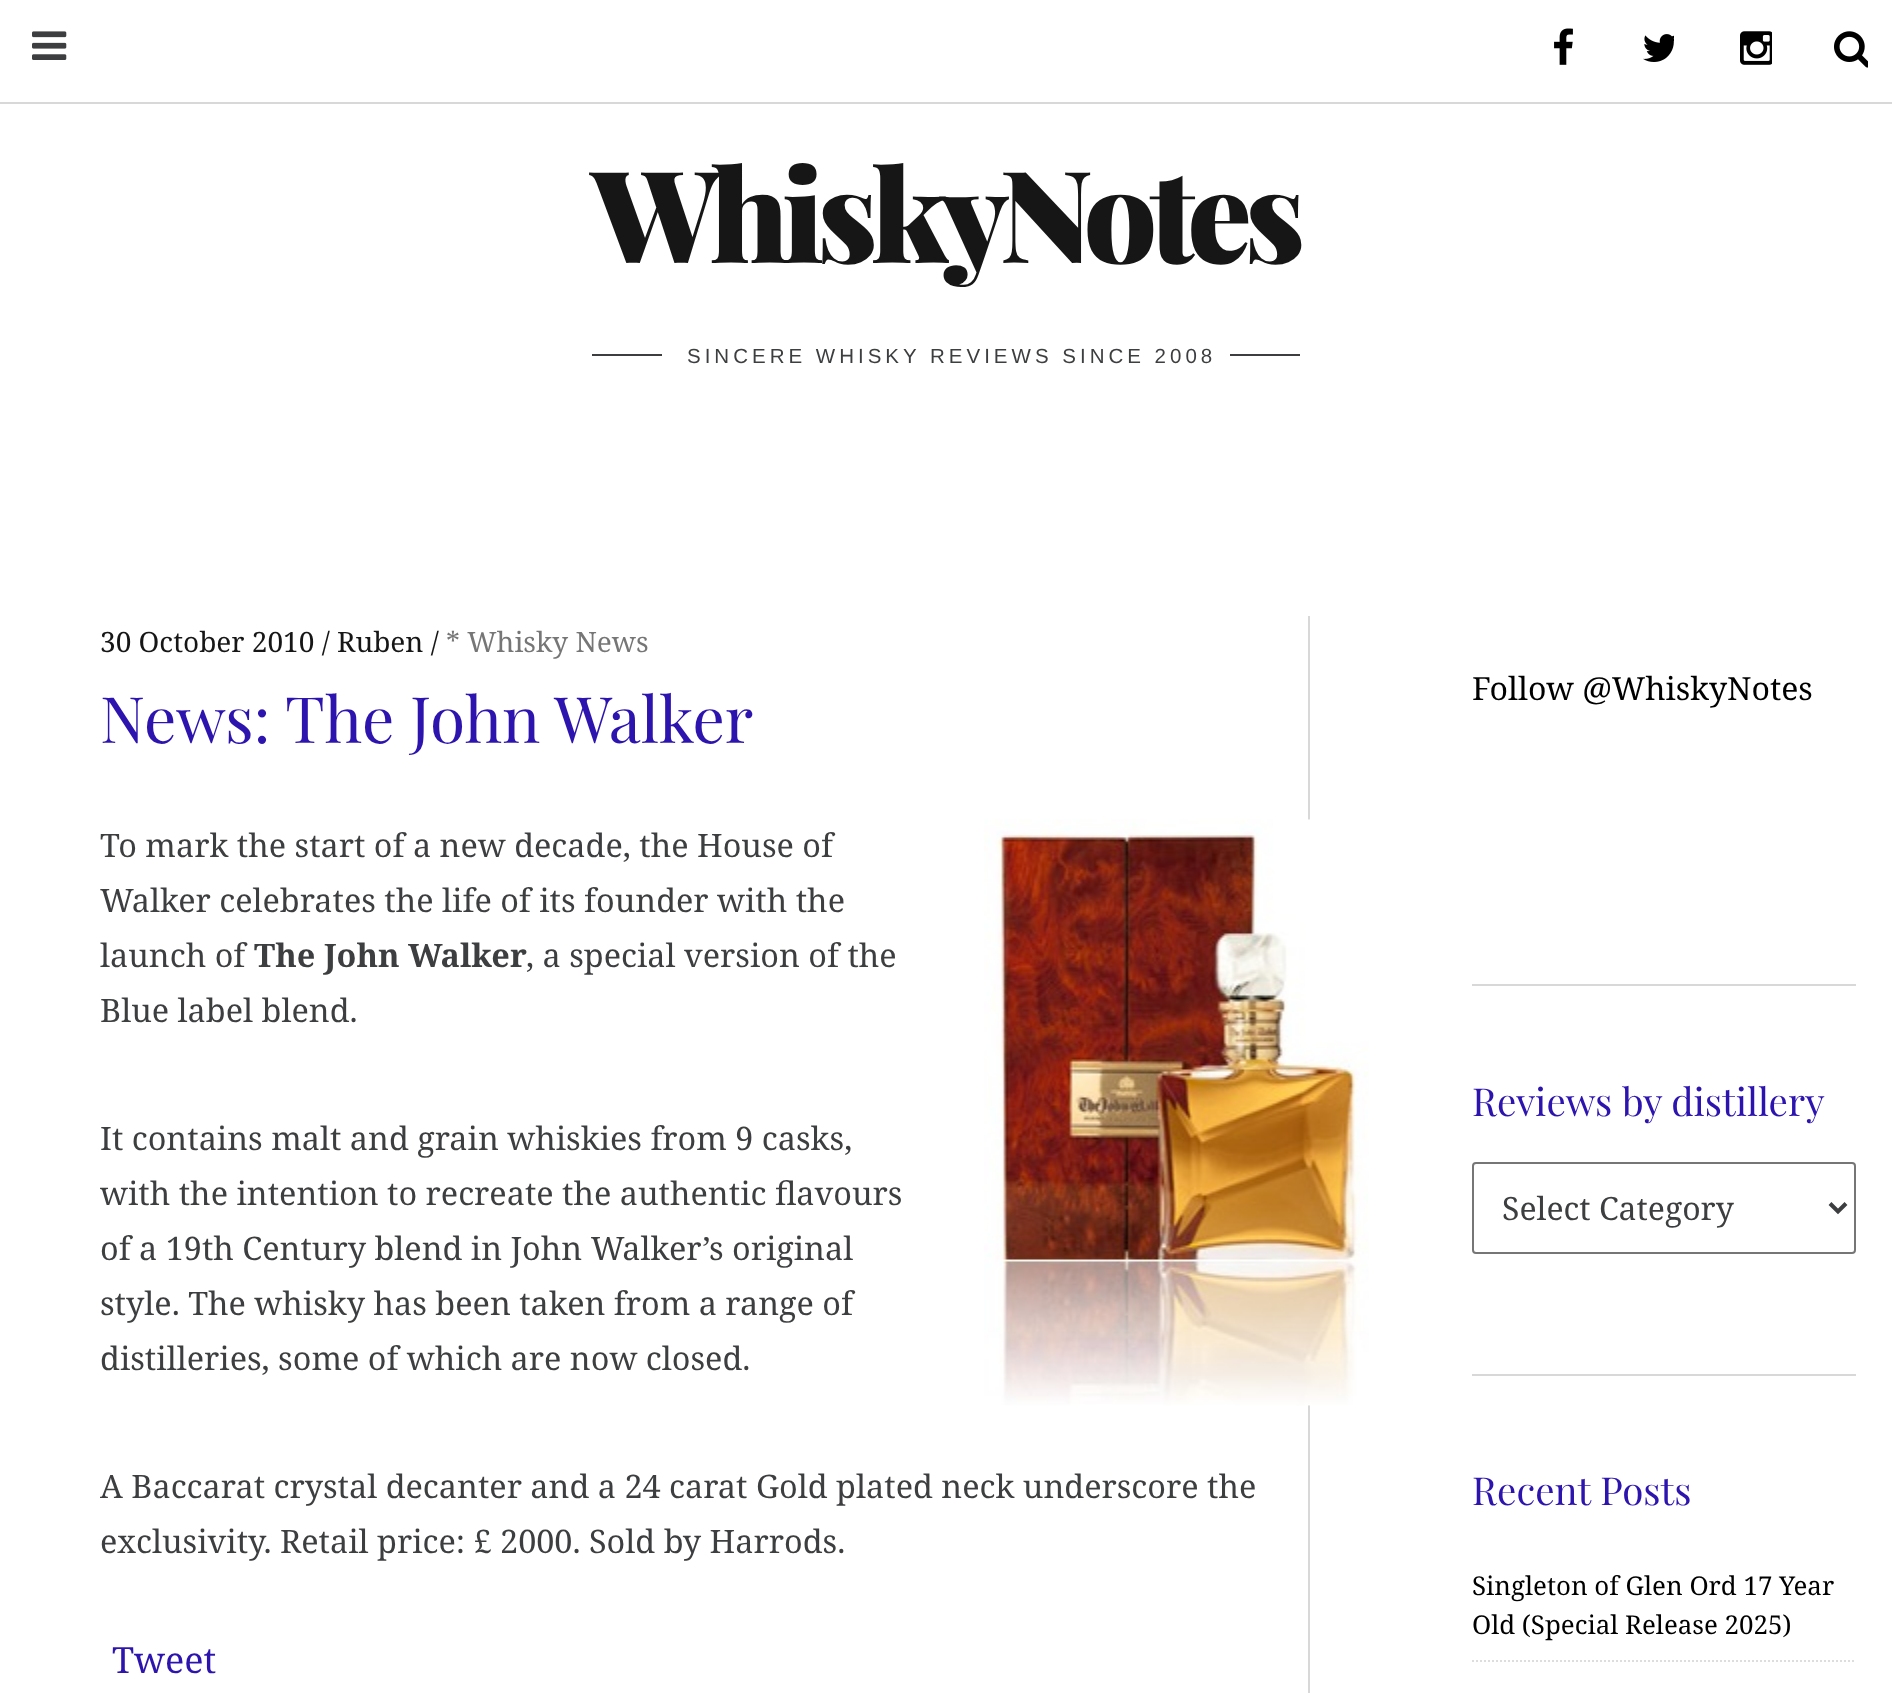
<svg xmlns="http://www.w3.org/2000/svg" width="1892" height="1693">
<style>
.a{font:900 128px Playfair Display;letter-spacing:-7px;fill:#171617}
.b{font:20.5px Liberation Sans;letter-spacing:4px;fill:#3d3e40}
.c{font:28px Noto Serif;fill:#171617}
.d{font:28px Noto Serif;fill:#767676}
.e{font:64px Playfair Display;fill:#2d14af}
.f{font:32.4px Noto Serif;fill:#3d3e40}
.g{font:bold 32.4px Noto Serif;fill:#3d3e40}
.h{font:36px Noto Serif;fill:#2d14af}
.i{font:32px Noto Serif;fill:#000}
.j{font:38.5px Playfair Display;fill:#2d14af}
.k{font:32px Noto Serif;fill:#3d3e40}
.l{font:25.9px Noto Serif;fill:#000}
</style>
<rect width="100%" height="100%" fill="#fff"/>
<image href="1.png" x="1554" y="28" width="19" height="37"/>
<image href="2.png" x="1643" y="34" width="31" height="28"/>
<image href="3.png" x="1740" y="31" width="32" height="34"/>
<image href="4.png" x="1834" y="31" width="34" height="37"/>
<path fill="#d8d8d9" d="M0 102h1892v2H0z"/>
<image href="5.png" x="32" y="31" width="35" height="29"/>
<path fill="#3d3e40" d="M592 354h708v2H592z"/>
<path fill="#fff" d="M662 354h568v2H662z"/>
<path fill="#d8d8d9" d="M1308 616h2v1077H1308z"/>
<image href="6.png" x="984" y="819" width="385" height="587"/>
<path fill="#d8d8d9" d="M1472 984h384v2H1472z"/>
<rect fill="none" stroke="#767676" stroke-width="2" x="1473" y="1163" width="382" height="90" rx="3"/>
<path fill="none" stroke="#3d3e40" stroke-width="4" d="M1830 1203.5l8 8l8-8"/>
<path fill="#d8d8d9" d="M1472 1374h384v2H1472z"/>
<path fill="none" stroke="#ddd" stroke-width="2" stroke-dasharray="2 2" d="M1472 1661h384"/>
<text class="a" x="591" y="263">WhiskyNotes</text>
<text class="b" x="687" y="363">SINCERE WHISKY REVIEWS SINCE 2008</text>
<text class="c" x="100" y="652">30 October 2010 / Ruben /</text>
<text class="d" x="446" y="652">* Whisky News</text>
<text class="e" x="100" y="743">News: The John Walker</text>
<text class="f" x="100" y="857">To mark the start of a new decade, the House of</text>
<text class="f" x="100" y="912">Walker celebrates the life of its founder with the</text>
<text class="f" x="100" y="967">launch of</text>
<text class="g" x="254" y="967">The John Walker</text>
<text class="f" x="526" y="967">, a special version of the</text>
<text class="f" x="100" y="1022">Blue label blend.</text>
<text class="f" x="100" y="1150">It contains malt and grain whiskies from 9 casks,</text>
<text class="f" x="100" y="1205">with the intention to recreate the authentic flavours</text>
<text class="f" x="100" y="1260">of a 19th Century blend in John Walker’s original</text>
<text class="f" x="100" y="1315">style. The whisky has been taken from a range of</text>
<text class="f" x="100" y="1370">distilleries, some of which are now closed.</text>
<text class="f" x="100" y="1498">A Baccarat crystal decanter and a 24 carat Gold plated neck underscore the</text>
<text class="f" x="100" y="1553">exclusivity. Retail price: £ 2000. Sold by Harrods.</text>
<text class="h" x="112" y="1673">Tweet</text>
<text class="i" x="1472" y="700">Follow @WhiskyNotes</text>
<text class="j" x="1472" y="1116">Reviews by distillery</text>
<text class="k" x="1502" y="1220">Select Category</text>
<text class="j" x="1472" y="1505">Recent Posts</text>
<text class="l" x="1472" y="1595">Singleton of Glen Ord 17 Year</text>
<text class="l" x="1472" y="1634">Old (Special Release 2025)</text>
</svg>
